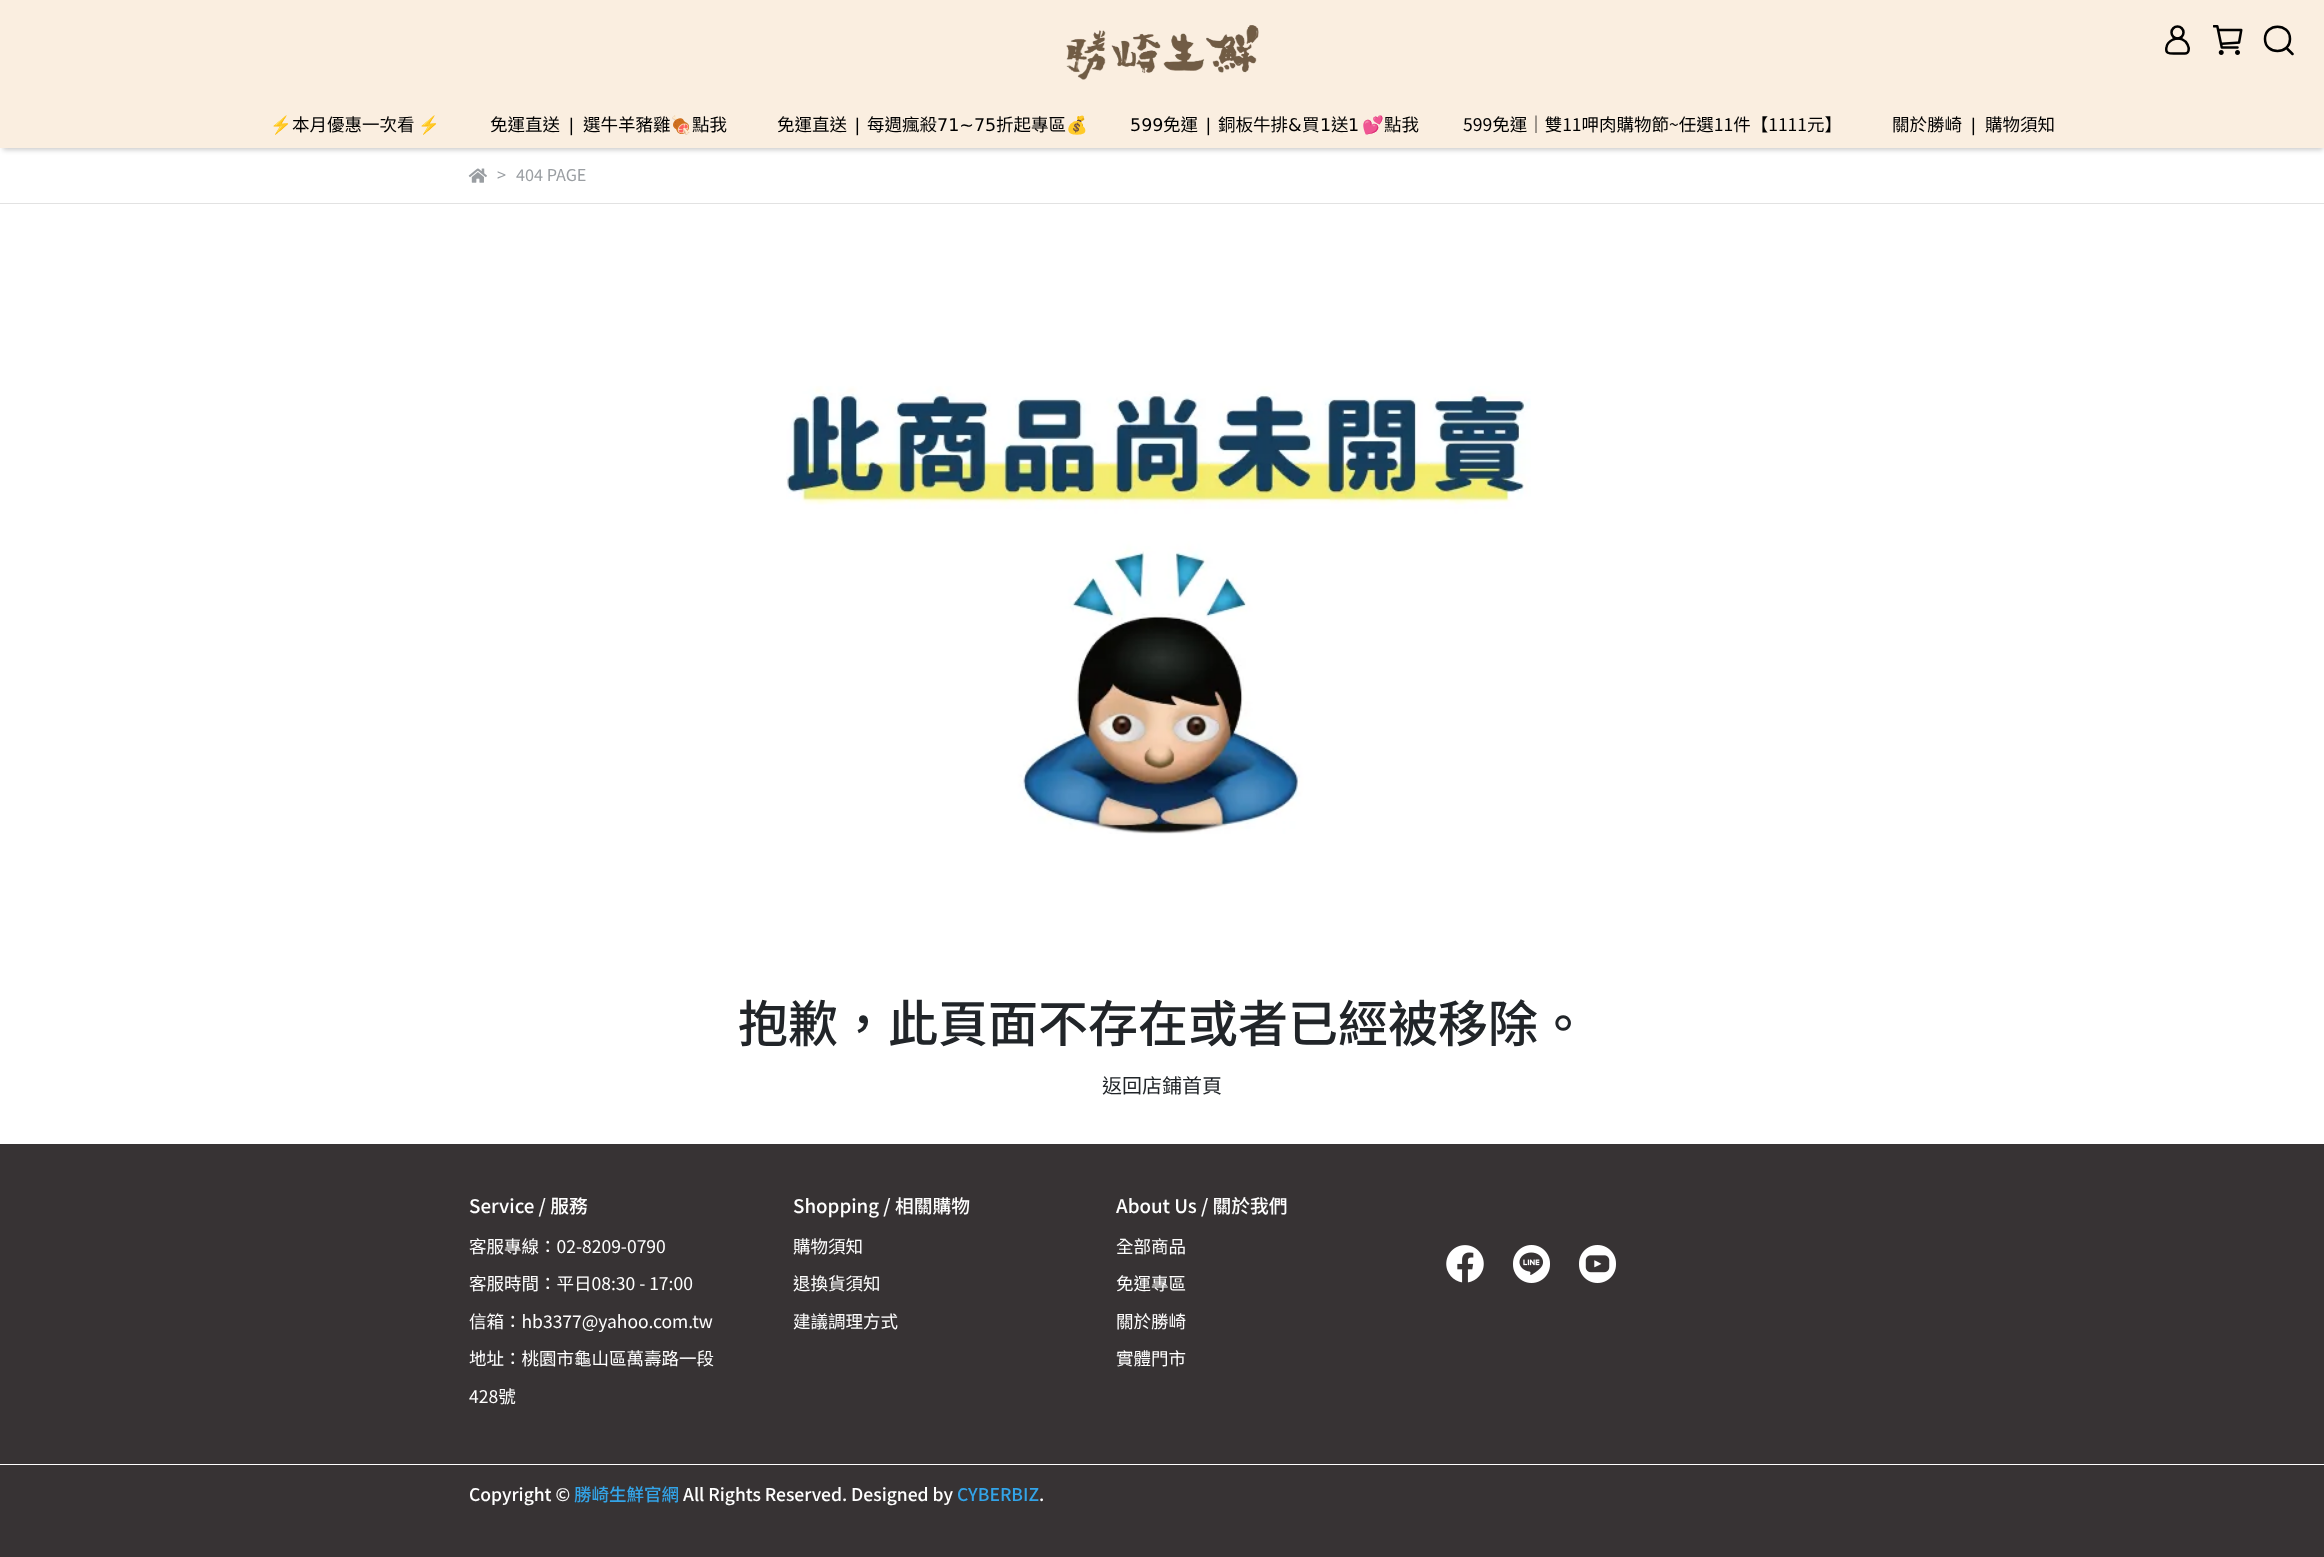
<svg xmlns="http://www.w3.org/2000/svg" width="2324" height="1557">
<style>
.a{font:17.5px Noto Color Emoji;fill:#000}
.b{font:17.5px Noto Sans TC;fill:#000}
.c{font:17.5px DejaVu Sans;fill:#000}
.d{font:16.25px Noto Sans TC;fill:#9a9ea2}
.e{font:500 50px Noto Sans TC;fill:#212529}
.f{font:20px Noto Sans TC;fill:#212529}
.g{font:500 18.75px Noto Sans TC;fill:#fff}
.h{font:17.5px Noto Sans TC;fill:#fff}
.i{font:500 17.5px Noto Sans TC;fill:#fff}
.j{font:500 17.5px Noto Sans TC;fill:#33a4e8}
</style>
<rect width="100%" height="100%" fill="#fff"/>
<path fill="#faeee0" d="M0 0h2324v101H0z"/>
<image href="1.png" x="1066" y="25" width="193" height="55"/>
<circle fill="none" stroke="#000" stroke-width="2.5" cx="2177.5" cy="32.5" r="6"/>
<path fill="none" stroke="#000" stroke-width="2.5" d="M2184.5 53.5h-9.5c-5.5 0-10 .5-8.5-6.5c.5-3.5 3.5-6 6.5-7.5c14.5-5.5 20.5 14.5 11.5 14z"/>
<image href="2.png" x="2213" y="25" width="30" height="30"/>
<path fill="none" stroke="#000" stroke-width="2.5" stroke-linecap="round" stroke-linejoin="round" d="M2290 39c0 16-25 16-25 0c0-16.5 25-16.5 25 0zm-2.5 10l5 5"/>
<path fill="#00000033" filter="blur(2.5px)" d="M3 109h2320v41H3z"/>
<path fill="#faeee0" d="M0 101h2324v47H0z"/>
<path fill="#e2e2e2" d="M0 203h2324v1H0z"/>
<image href="3.png" x="468" y="168" width="19" height="15"/>
<image href="4.png" x="786" y="386" width="745" height="448"/>
<path fill="#373334" d="M0 1144h2324v413H0z"/>
<image href="5.png" x="1446" y="1245" width="38" height="38"/>
<image href="6.png" x="1513" y="1245" width="37" height="38"/>
<image href="7.png" x="1579" y="1245" width="37" height="38"/>
<path fill="#fff" d="M0 1464h2324v1H0z"/>
<text class="a" x="270" y="131">⚡</text>
<text class="b" x="292" y="131">本月優惠一次看</text>
<text class="a" x="418" y="131">⚡</text>
<text class="b" x="490" y="131">免運直送</text>
<text class="c" x="564" y="131">❘</text>
<text class="b" x="583" y="131">選牛羊豬雞</text>
<text class="a" x="670" y="131">🍖</text>
<text class="b" x="692" y="131">點我</text>
<text class="b" x="777" y="131">免運直送</text>
<text class="c" x="850" y="131">❘</text>
<text class="b" x="867" y="131">每週瘋殺</text>
<text class="c" x="937" y="131">71~75</text>
<text class="b" x="996" y="131">折起專區</text>
<text class="a" x="1066" y="131">💰</text>
<text class="c" x="1130" y="131">599</text>
<text class="b" x="1163" y="131">免運</text>
<text class="c" x="1201" y="131">❘</text>
<text class="b" x="1218" y="131">銅板牛排</text>
<text class="c" x="1288" y="131">&amp;</text>
<text class="b" x="1302" y="131">買</text>
<text class="c" x="1320" y="131">1</text>
<text class="b" x="1331" y="131">送</text>
<text class="c" x="1348" y="131">1</text>
<text class="a" x="1362" y="131">💕</text>
<text class="b" x="1384" y="131">點我</text>
<text class="b" x="1463" y="131">599免運｜雙11呷肉購物節~任選11件【1111元】</text>
<text class="b" x="1892" y="131">關於勝崎</text>
<text class="c" x="1966" y="131">❘</text>
<text class="b" x="1985" y="131">購物須知</text>
<text class="d" x="497" y="181">&gt;</text>
<text class="d" x="516" y="181">404 PAGE</text>
<text class="e" x="738" y="1042">抱歉，此頁面不存在或者已經被移除。</text>
<text class="f" x="1102" y="1093">返回店鋪首頁</text>
<text class="g" x="469" y="1213">Service / 服務</text>
<text class="h" x="469" y="1253">客服專線：02-8209-0790</text>
<text class="h" x="469" y="1290">客服時間：平日08:30 - 17:00</text>
<text class="h" x="469" y="1328">信箱：hb3377@yahoo.com.tw</text>
<text class="h" x="469" y="1365">地址：桃園市龜山區萬壽路一段</text>
<text class="h" x="469" y="1403">428號</text>
<text class="g" x="793" y="1213">Shopping / 相關購物</text>
<text class="h" x="793" y="1253">購物須知</text>
<text class="h" x="793" y="1290">退換貨須知</text>
<text class="h" x="793" y="1328">建議調理方式</text>
<text class="g" x="1116" y="1213">About Us / 關於我們</text>
<text class="h" x="1116" y="1253">全部商品</text>
<text class="h" x="1116" y="1290">免運專區</text>
<text class="h" x="1116" y="1328">關於勝崎</text>
<text class="h" x="1116" y="1365">實體門市</text>
<text class="i" x="469" y="1501">Copyright ©</text>
<text class="j" x="574" y="1501">勝崎生鮮官網</text>
<text class="i" x="683" y="1501">All Rights Reserved. Designed by</text>
<text class="j" x="957" y="1501">CYBERBIZ</text>
<text class="i" x="1039" y="1501">.</text>
</svg>
